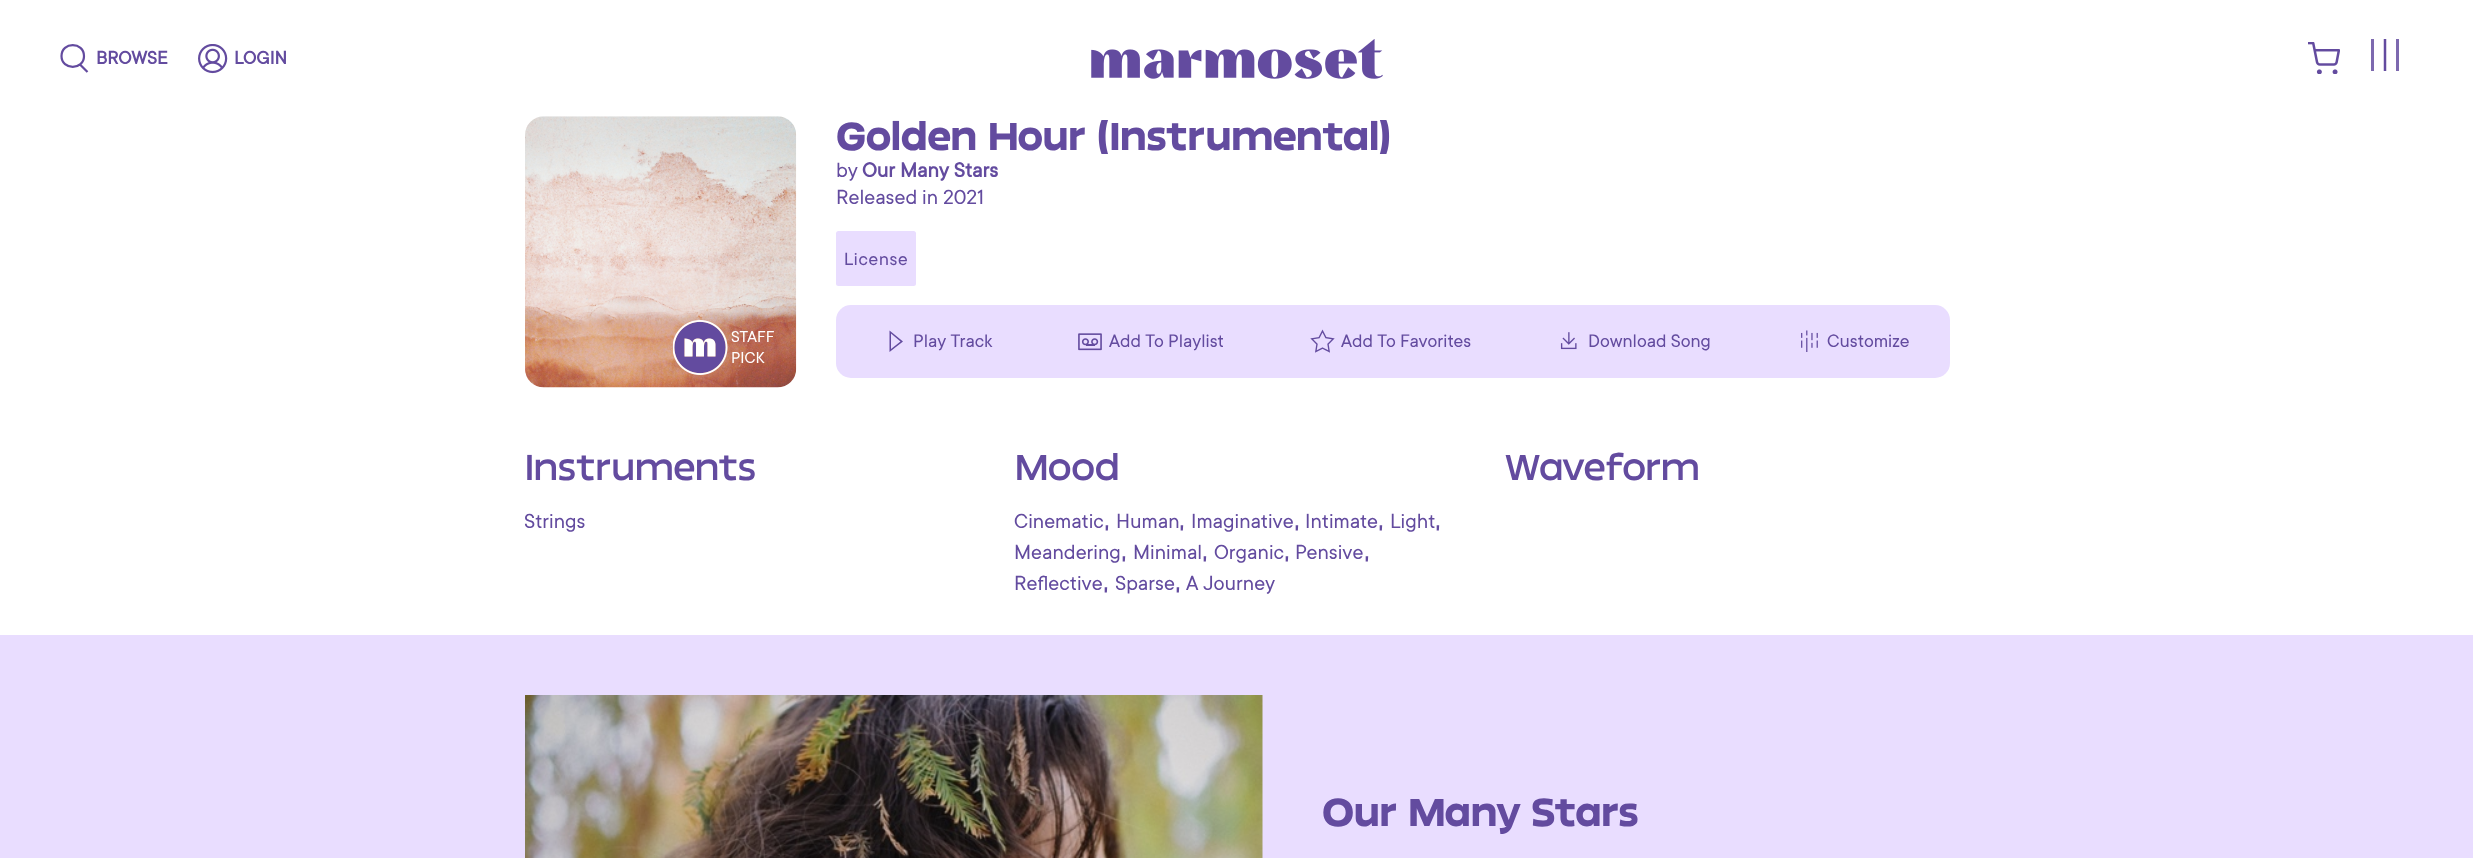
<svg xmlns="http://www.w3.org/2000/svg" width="2473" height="858">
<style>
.a{font:bold 20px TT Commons;fill:#634b9f}
.b{font:17.5px TT Commons;fill:#fff}
.c{font:bold 35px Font;letter-spacing:-0.7px;fill:#634b9f}
.d{font:22.5px TT Commons;fill:#634b9f}
.e{font:bold 22.5px TT Commons;fill:#634b9f}
.f{font:500 17.5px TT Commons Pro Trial;letter-spacing:0.75px;fill:#634b9f}
.g{font:20px TT Commons;fill:#634b9f}
.h{font:32.5px Font;letter-spacing:-0.6px;fill:#634b9f}
.i{font:20px Font;fill:#634b9f}
</style>
<rect width="100%" height="100%" fill="#fff"/>
<path fill="none" stroke="#634b9f" stroke-width="2.2" d="M80 64.5l7.5 7.5m-3.5-16c0 14.5-22.5 14.5-22.5 0c0-14.5 22.5-14.5 22.5 0z"/>
<image href="1.png" x="198" y="44" width="30" height="30"/>
<image href="2.png" x="1091" y="39" width="292" height="40"/>
<image href="3.png" x="2308" y="42" width="32" height="32"/>
<path fill="#7d69af" d="M2371 39h3v32H2371z"/>
<path fill="none" stroke="#634b9f" stroke-width="2.5" d="M2385 39v32"/>
<path fill="#7d69af" d="M2396 39h3v32H2396z"/>
<image href="4.png" x="525" y="116" width="272" height="272"/>
<image href="5.png" x="673" y="320" width="55" height="55"/>
<rect fill="#e9ddff" x="836" y="231" width="80" height="55" rx="2.5"/>
<rect fill="#e9ddff" x="836" y="305" width="1114" height="73" rx="15"/>
<path fill="#634b9f" d="M891 333.5l9.5 8l-9.5 7.5zm-1.5 18.5l13.5-10.5l-13.5-11z"/>
<image href="6.png" x="1078" y="333" width="24" height="18"/>
<image href="7.png" x="1310" y="329" width="25" height="24"/>
<image href="8.png" x="1560" y="332" width="17" height="18"/>
<image href="9.png" x="1801" y="330" width="17" height="22"/>
<path fill="#e9ddff" d="M0 635h2473v223H0z"/>
<image href="10.png" x="525" y="695" width="738" height="163"/>
<text class="a" x="96" y="64">BROWSE</text>
<text class="a" x="234" y="64">LOGIN</text>
<text class="b" x="731" y="342">STAFF</text>
<text class="b" x="731" y="363">PICK</text>
<text class="c" x="836" y="150">Golden Hour (Instrumental)</text>
<text class="d" x="836" y="177">by</text>
<text class="e" x="862" y="177">Our Many Stars</text>
<text class="d" x="836" y="204">Released in 2021</text>
<text class="f" x="844" y="265">License</text>
<text class="g" x="913" y="347">Play Track</text>
<text class="g" x="1109" y="347">Add To Playlist</text>
<text class="g" x="1341" y="347">Add To Favorites</text>
<text class="g" x="1588" y="347">Download Song</text>
<text class="g" x="1827" y="347">Customize</text>
<text class="h" x="524" y="480">Instruments</text>
<text class="d" x="524" y="528">Strings</text>
<text class="h" x="1014" y="480">Mood</text>
<text class="d" x="1014" y="528">Cinematic</text>
<text class="i" x="1104" y="528">,</text>
<text class="d" x="1116" y="528">Human</text>
<text class="i" x="1179" y="528">,</text>
<text class="d" x="1191" y="528">Imaginative</text>
<text class="i" x="1294" y="528">,</text>
<text class="d" x="1305" y="528">Intimate</text>
<text class="i" x="1378" y="528">,</text>
<text class="d" x="1390" y="528">Light</text>
<text class="i" x="1435" y="528">,</text>
<text class="d" x="1014" y="559">Meandering</text>
<text class="i" x="1121" y="559">,</text>
<text class="d" x="1133" y="559">Minimal</text>
<text class="i" x="1202" y="559">,</text>
<text class="d" x="1214" y="559">Organic</text>
<text class="i" x="1284" y="559">,</text>
<text class="d" x="1295" y="559">Pensive</text>
<text class="i" x="1364" y="559">,</text>
<text class="d" x="1014" y="590">Reflective</text>
<text class="i" x="1103" y="590">,</text>
<text class="d" x="1115" y="590">Sparse</text>
<text class="i" x="1175" y="590">,</text>
<text class="d" x="1186" y="590">A Journey</text>
<text class="h" x="1504" y="480">Waveform</text>
<text class="c" x="1322" y="826">Our Many Stars</text>
</svg>
